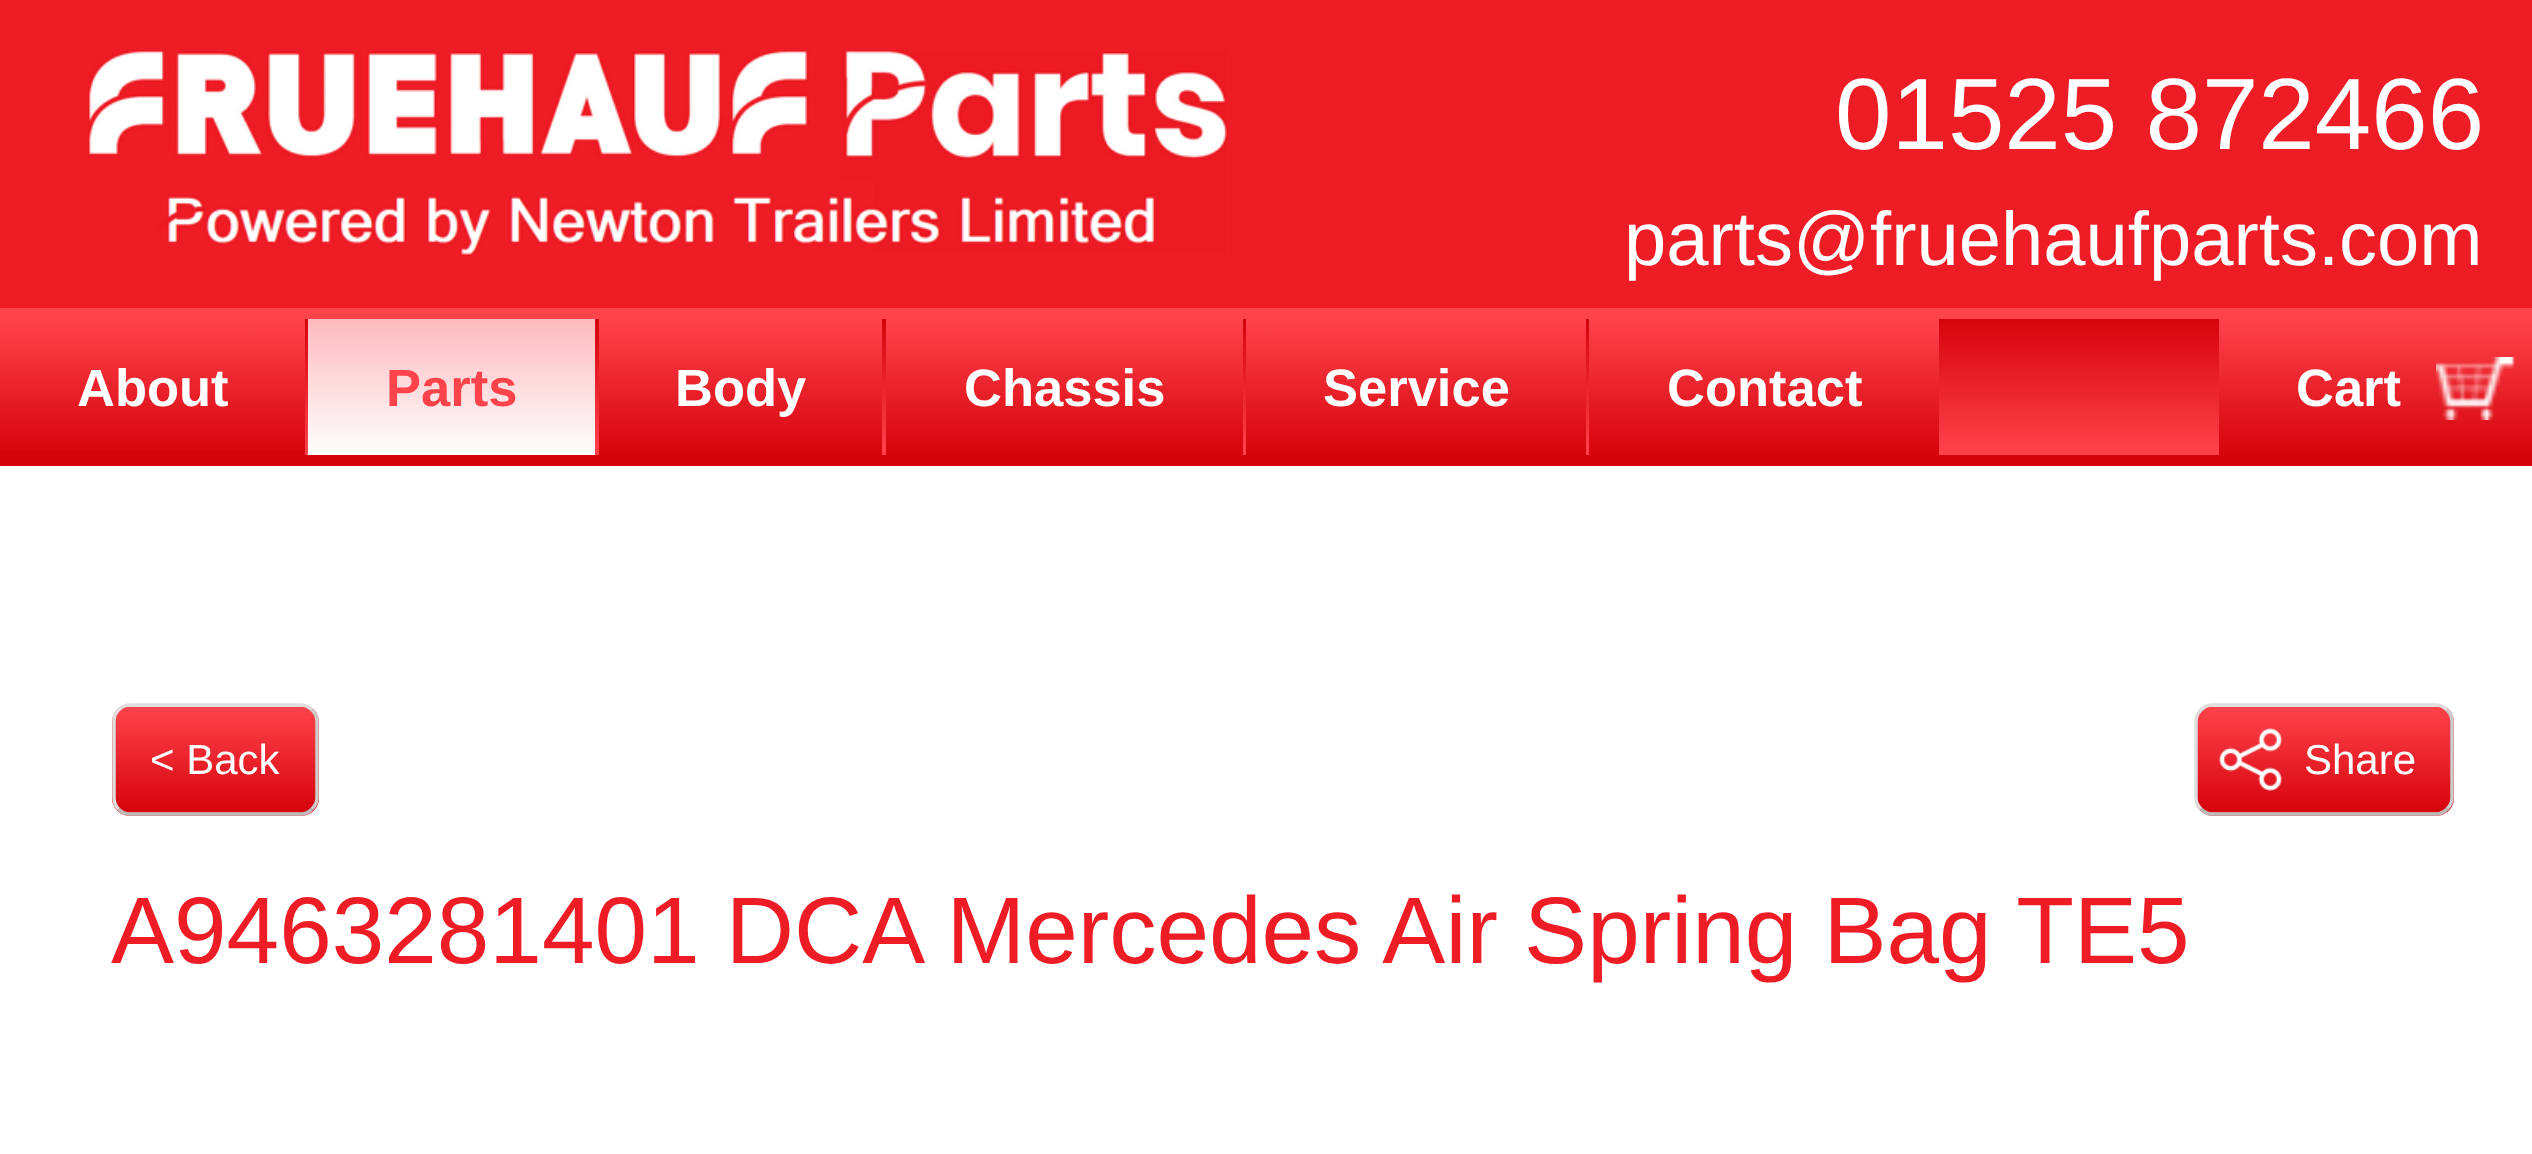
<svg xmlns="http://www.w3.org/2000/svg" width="2532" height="1154">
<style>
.a{font:101.5px Liberation Sans;fill:#fff}
.b{font:76px Liberation Sans;fill:#fff}
.c{font:bold 52.5px Liberation Sans;fill:#fff}
.d{font:bold 52.5px Liberation Sans;fill:#ff434b}
.e{font:42px Liberation Sans;fill:#fff}
.f{font:94.5px Liberation Sans;fill:#ee1c25}
</style>
<defs>
<linearGradient id="g1" gradientUnits="userSpaceOnUse" x1="1267" y1="318" x2="1267" y2="455"><stop offset="0" stop-color="#d5030c"/><stop offset="1" stop-color="#ff434b"/></linearGradient>
<linearGradient id="g2" gradientUnits="userSpaceOnUse" x1="152" y1="319" x2="152" y2="455"><stop offset="0" stop-color="#ff434b"/><stop offset="1" stop-color="#d5030c"/></linearGradient>
<linearGradient id="g3" gradientUnits="userSpaceOnUse" x1="452" y1="319" x2="452" y2="455"><stop offset="0" stop-color="#ffbabf"/><stop offset="1" stop-color="#fff"/></linearGradient>
<linearGradient id="g4" gradientUnits="userSpaceOnUse" x1="740" y1="319" x2="740" y2="455"><stop offset="0" stop-color="#ff434b"/><stop offset="1" stop-color="#d5030c"/></linearGradient>
<linearGradient id="g5" gradientUnits="userSpaceOnUse" x1="1064" y1="319" x2="1064" y2="455"><stop offset="0" stop-color="#ff434b"/><stop offset="1" stop-color="#d5030c"/></linearGradient>
<linearGradient id="g6" gradientUnits="userSpaceOnUse" x1="1416" y1="319" x2="1416" y2="455"><stop offset="0" stop-color="#ff434b"/><stop offset="1" stop-color="#d5030c"/></linearGradient>
<linearGradient id="g7" gradientUnits="userSpaceOnUse" x1="1764" y1="319" x2="1764" y2="455"><stop offset="0" stop-color="#ff434b"/><stop offset="1" stop-color="#d5030c"/></linearGradient>
<clipPath id="clip1"><rect x="112" y="704" width="207" height="112" rx="18"/></clipPath>
<linearGradient id="g8" gradientUnits="userSpaceOnUse" x1="215" y1="707" x2="215" y2="812"><stop offset="0" stop-color="#ff434b"/><stop offset="1" stop-color="#d5030c"/></linearGradient>
<linearGradient id="g9" gradientUnits="userSpaceOnUse" x1="215" y1="812" x2="215" y2="917"><stop offset="0" stop-color="#ff434b"/><stop offset="1" stop-color="#d5030c"/></linearGradient>
<clipPath id="clip2"><rect x="2195" y="704" width="259" height="112" rx="18"/></clipPath>
<linearGradient id="g10" gradientUnits="userSpaceOnUse" x1="2324" y1="707" x2="2324" y2="812"><stop offset="0" stop-color="#ff434b"/><stop offset="1" stop-color="#d5030c"/></linearGradient>
<linearGradient id="g11" gradientUnits="userSpaceOnUse" x1="2324" y1="812" x2="2324" y2="917"><stop offset="0" stop-color="#ff434b"/><stop offset="1" stop-color="#d5030c"/></linearGradient>
</defs>
<rect width="100%" height="100%" fill="#d5030c"/>
<path fill="#ee1c25" d="M0 0h2532v308H0z"/>
<image href="1.png" x="88" y="50" width="1140" height="206"/>
<path fill="url(#g1)" d="M305 323h1914v132H305z"/>
<path fill="#ff434b" d="M0 308h2532v11H0z"/>
<path fill="url(#g2)" d="M0 319h305v131H0z"/>
<path fill="url(#g3)" d="M308 319h287v136H308z"/>
<path fill="url(#g4)" d="M599 319h283v136H599z"/>
<path fill="url(#g5)" d="M886 319h357v136H886z"/>
<path fill="url(#g6)" d="M1246 319h340v136H1246z"/>
<path fill="url(#g7)" d="M1589 319h350v136H1589z"/>
<image href="2.png" x="2219" y="319" width="313" height="136"/>
<path fill="#fff" d="M0 466h2532v688H0z"/>
<g clip-path="url(#clip1)">
<path fill="url(#g8)" d="M112 707h207v105H112z"/>
<path fill="url(#g9)" d="M112 812h207v4H112z"/>
</g>
<path fill="none" stroke="#ccc" stroke-width="3.5" d="M312 710c3 3 5 7 5 11v77c0 4-2 8-5 11"/>
<path fill="none" stroke="#bbb" stroke-width="3.5" d="M312 809c-3 3-7 5-11 5h-171.5c-4 0-8-2-11-5"/>
<path fill="none" stroke="#ddd" stroke-width="3.5" d="M118.5 809c-3-3-4.5-7-4.5-11v-77c0-4 1.5-8 4.5-11c3-3 7-5 11-5h171.5c4 0 8 2 11 5"/>
<g clip-path="url(#clip2)">
<path fill="url(#g10)" d="M2195 707h259v105H2195z"/>
<path fill="url(#g11)" d="M2195 812h259v4H2195z"/>
</g>
<path fill="none" stroke="#ccc" stroke-width="3.5" d="M2447 710c3 3 5 7 5 11v77c0 4-2 8-5 11"/>
<path fill="none" stroke="#bbb" stroke-width="3.5" d="M2447 809c-3 3-7 5-11 5h-224c-4 0-8-2-11-5"/>
<path fill="none" stroke="#ddd" stroke-width="3.5" d="M2201 809c-3-3-5-7-5-11v-77c0-4 2-8 5-11c3-3 7-5 11-5h224c4 0 8 2 11 5"/>
<image href="3.png" x="2219" y="728" width="63" height="63"/>
<text class="a" x="1835" y="149">01525 872466</text>
<text class="b" x="1624" y="265">parts@fruehaufparts.com</text>
<text class="c" x="77" y="406">About</text>
<text class="d" x="386" y="406">Parts</text>
<text class="c" x="675" y="406">Body</text>
<text class="c" x="964" y="406">Chassis</text>
<text class="c" x="1323" y="406">Service</text>
<text class="c" x="1667" y="406">Contact</text>
<text class="c" x="2296" y="406">Cart</text>
<text class="e" x="150" y="774">&lt; Back</text>
<text class="e" x="2304" y="774">Share</text>
<text class="f" x="111" y="963">A9463281401 DCA Mercedes Air Spring Bag TE5</text>
</svg>
